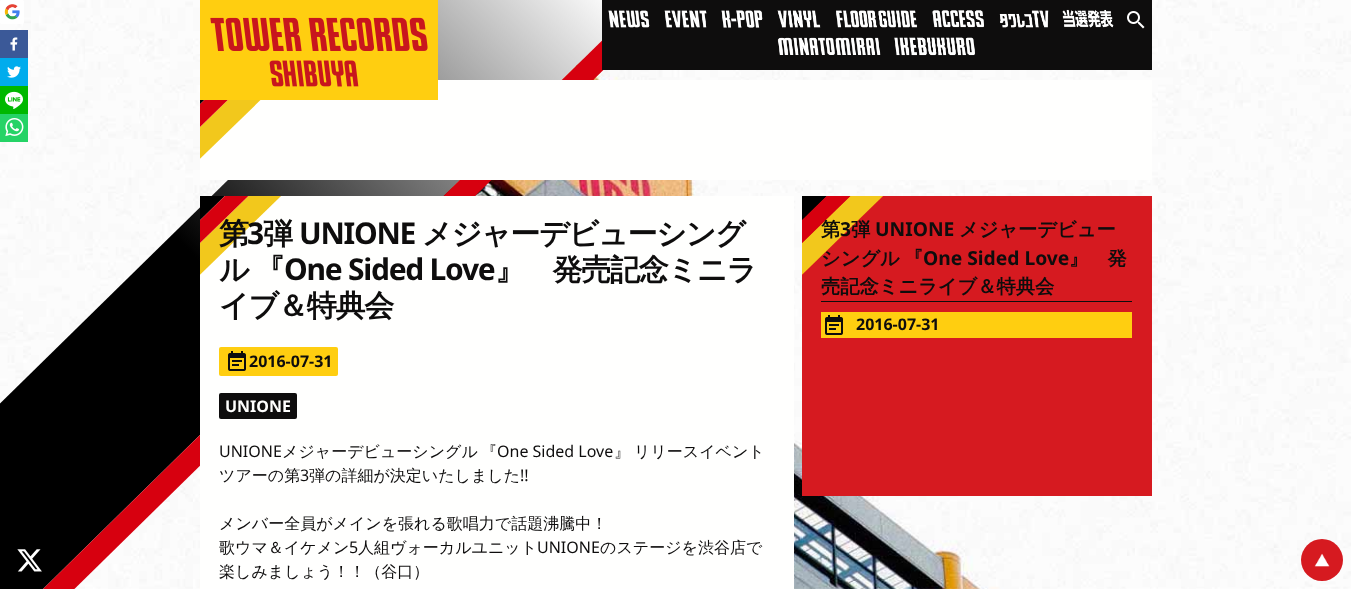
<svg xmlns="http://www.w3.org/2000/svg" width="1351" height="589">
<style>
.a{font:bold 30px WenQuanYi Zen Hei;letter-spacing:-1.25px;fill:#0e0d0d}
.b{font:bold 30px Noto Sans;letter-spacing:-1.25px;fill:#0e0d0d}
.c{font:bold 16px Noto Sans;fill:#0e0d0d}
.d{font:bold 16px Noto Sans;fill:#fffffe}
.e{font:16px Noto Sans;fill:#0e0d0d}
.f{font:500 16px WenQuanYi Zen Hei;fill:#0e0d0d}
.g{font:bold 19.25px WenQuanYi Zen Hei;fill:#0e0d0d}
.h{font:bold 19.25px Noto Sans;fill:#0e0d0d}
</style>
<rect width="100%" height="100%" fill="#fff"/>
<image href="1.png" x="43" y="588" width="1308" height="1"/>
<image href="3.png" x="0" y="0" width="1351" height="589"/>
<image href="9.png" x="0" y="0" width="604" height="589"/>
<rect fill="#fff" width="24" height="24" rx="2"/>
<image href="2.png" x="4" y="4" width="16" height="16"/>
<image href="4.png" x="0" y="30" width="28" height="28"/>
<image href="5.png" x="0" y="58" width="28" height="28"/>
<image href="6.png" x="0" y="86" width="28" height="28"/>
<image href="7.png" x="0" y="114" width="28" height="28"/>
<image href="8.png" x="17" y="549" width="25" height="23"/>
<path fill="#fffffe" d="M200 80h952v100H200z"/>
<path fill="#ffce10" d="M200 0h238v100H200z"/>
<image href="10.png" x="210" y="17" width="218" height="70"/>
<path fill="#0e0d0d" d="M602 0h550v70H602z"/>
<image href="11.png" x="608" y="10" width="42" height="18"/>
<image href="12.png" x="664" y="10" width="43" height="18"/>
<image href="13.png" x="721" y="10" width="42" height="18"/>
<image href="14.png" x="777" y="10" width="44" height="18"/>
<image href="15.png" x="836" y="10" width="82" height="18"/>
<image href="16.png" x="932" y="10" width="52" height="18"/>
<image href="17.png" x="999" y="10" width="50" height="18"/>
<image href="18.png" x="1062" y="9" width="52" height="19"/>
<image href="19.png" x="1127" y="11" width="18" height="18"/>
<image href="20.png" x="777" y="37" width="104" height="18"/>
<image href="21.png" x="894" y="37" width="81" height="19"/>
<image href="22.png" x="200" y="100" width="61" height="59"/>
<path fill="#fffffe" d="M200 196h594v393H200z"/>
<image href="23.png" x="200" y="196" width="81" height="79"/>
<rect fill="#ffce10" x="219" y="347" width="119" height="29" rx="2"/>
<image href="24.png" x="228" y="351" width="18" height="20"/>
<rect fill="#0e0d0d" x="219" y="393" width="78" height="26" rx="2"/>
<path fill="#d61a20" d="M802 196h350v300H802z"/>
<image href="25.png" x="802" y="196" width="81" height="79"/>
<path fill="#0e0d0d" d="M821 301h311v1H821z"/>
<path fill="#ffce10" d="M821 312h311v26H821z"/>
<image href="24.png" x="825" y="315" width="18" height="20"/>
<circle fill="#d61a20" cx="1322" cy="560" r="21"/>
<image href="26.png" x="1314" y="553" width="16" height="14"/>
<text class="a" x="219" y="244">第</text>
<text class="b" x="247" y="244">3</text>
<text class="a" x="263" y="244">弾</text>
<text class="b" x="299" y="244">UNIONE</text>
<text class="a" x="422" y="244">メジャーデビューシング</text>
<text class="a" x="219" y="280">ル</text>
<text class="a" x="255" y="280">『</text>
<text class="b" x="284" y="280">One Sided Love</text>
<text class="a" x="495" y="280">』　発売記念ミニラ</text>
<text class="a" x="219" y="316">イブ＆特典会</text>
<text class="c" x="249" y="367">2016-07-31</text>
<text class="d" x="225" y="412">UNIONE</text>
<text class="e" x="219" y="457">UNIONE</text>
<text class="f" x="282" y="457">メジャーデビューシングル</text>
<text class="f" x="481" y="457">『</text>
<text class="e" x="497" y="457">One Sided Love</text>
<text class="f" x="614" y="457">』</text>
<text class="f" x="634" y="457">リリースイベント</text>
<text class="f" x="219" y="481">ツアーの第</text>
<text class="e" x="300" y="481">3</text>
<text class="f" x="309" y="481">弾の詳細が決定いたしました</text>
<text class="e" x="520" y="481">!!</text>
<text class="f" x="219" y="529">メンバー全員がメインを張れる歌唱力で話題沸騰中！</text>
<text class="f" x="219" y="553">歌ウマ＆イケメン</text>
<text class="e" x="349" y="553">5</text>
<text class="f" x="358" y="553">人組ヴォーカルユニット</text>
<text class="e" x="537" y="553">UNIONE</text>
<text class="f" x="600" y="553">のステージを渋谷店で</text>
<text class="f" x="219" y="577">楽しみましょう！！（谷口）</text>
<text class="g" x="821" y="236">第</text>
<text class="h" x="840" y="236">3</text>
<text class="g" x="851" y="236">弾</text>
<text class="h" x="875" y="236">UNIONE</text>
<text class="g" x="959" y="236">メジャーデビュー</text>
<text class="g" x="821" y="265">シングル</text>
<text class="g" x="904" y="265">『</text>
<text class="h" x="923" y="265">One Sided Love</text>
<text class="g" x="1069" y="265">』　発</text>
<text class="g" x="821" y="293">売記念ミニライブ＆特典会</text>
<text class="c" x="856" y="330">2016-07-31</text>
</svg>
